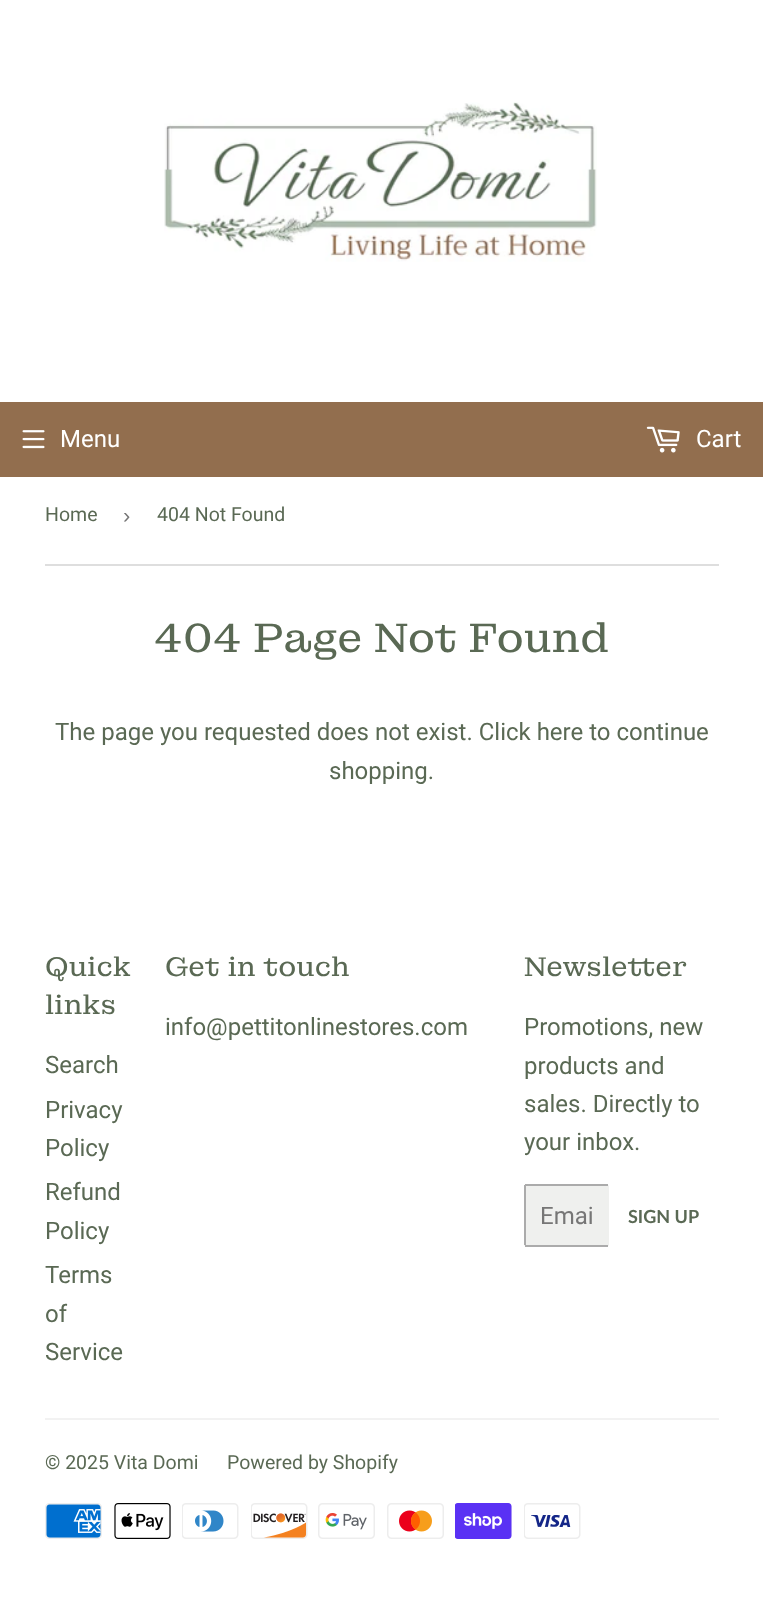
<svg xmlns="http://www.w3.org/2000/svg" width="763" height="1611">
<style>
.a{font:24px Roboto;fill:#fff}
.b{font:19.5px Roboto;fill:#5a6954}
.c{font:22px Liberation Sans;fill:#767676}
.d{font:41.5px 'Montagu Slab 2';fill:#5a6954}
.e{font:24px Roboto;fill:#5a6954}
.f{font:27.25px Montagu Slab;fill:#5a6954}
.g{font:24px Roboto;fill:#767676}
.h{font:bold 18px Lato;fill:#5a6954}
</style>
<rect width="100%" height="100%" fill="#fff"/>
<image href="1.png" x="164" y="102" width="433" height="160"/>
<path fill="#926e4e" d="M0 402h763v75H0z"/>
<image href="2.png" x="22" y="430" width="23" height="19"/>
<image href="3.png" x="646" y="426" width="34" height="27"/>
<path fill="#dedede" d="M45 564h674v2H45z"/>
<rect fill="#eff0ee" x="524" y="1184" width="85" height="63" rx="3"/>
<path fill="#ababab" d="M525 1184h83v2H525z"/>
<path fill="#ababab" d="M525 1245h83v2H525z"/>
<path fill="#ababab" d="M524 1185h2v60H524z"/>
<path fill="#f2f2f2" d="M45 1418h674v2H45z"/>
<image href="4.png" x="45" y="1503" width="57" height="36"/>
<image href="5.png" x="114" y="1503" width="57" height="36"/>
<image href="6.png" x="182" y="1503" width="57" height="36"/>
<image href="7.png" x="251" y="1503" width="57" height="36"/>
<image href="8.png" x="318" y="1503" width="57" height="36"/>
<image href="9.png" x="387" y="1503" width="57" height="36"/>
<image href="10.png" x="455" y="1503" width="57" height="36"/>
<image href="11.png" x="524" y="1503" width="57" height="36"/>
<text class="a" x="60" y="447">Menu</text>
<text class="a" x="696" y="447">Cart</text>
<text class="b" x="45" y="521">Home</text>
<text class="c" x="123" y="523">›</text>
<text class="b" x="157" y="521">404 Not Found</text>
<text class="d" x="154" y="652">404 Page Not Found</text>
<text class="e" x="55" y="740">The page you requested does not exist. Click here to continue</text>
<text class="e" x="329" y="779">shopping.</text>
<text class="f" x="45" y="976">Quick</text>
<text class="f" x="45" y="1014">links</text>
<text class="e" x="45" y="1073">Search</text>
<text class="e" x="45" y="1118">Privacy</text>
<text class="e" x="45" y="1156">Policy</text>
<text class="e" x="45" y="1200">Refund</text>
<text class="e" x="45" y="1239">Policy</text>
<text class="e" x="45" y="1283">Terms</text>
<text class="e" x="45" y="1322">of</text>
<text class="e" x="45" y="1360">Service</text>
<text class="f" x="165" y="976">Get in touch</text>
<text class="e" x="165" y="1035">info@pettitonlinestores.com</text>
<text class="f" x="524" y="976">Newsletter</text>
<text class="e" x="524" y="1035">Promotions, new</text>
<text class="e" x="524" y="1074">products and</text>
<text class="e" x="524" y="1112">sales. Directly to</text>
<text class="e" x="524" y="1150">your inbox.</text>
<text class="g" x="540" y="1224">Emai</text>
<text class="h" x="628" y="1223">SIGN UP</text>
<text class="b" x="45" y="1469">© 2025 Vita Domi</text>
<text class="b" x="227" y="1469">Powered by Shopify</text>
</svg>
